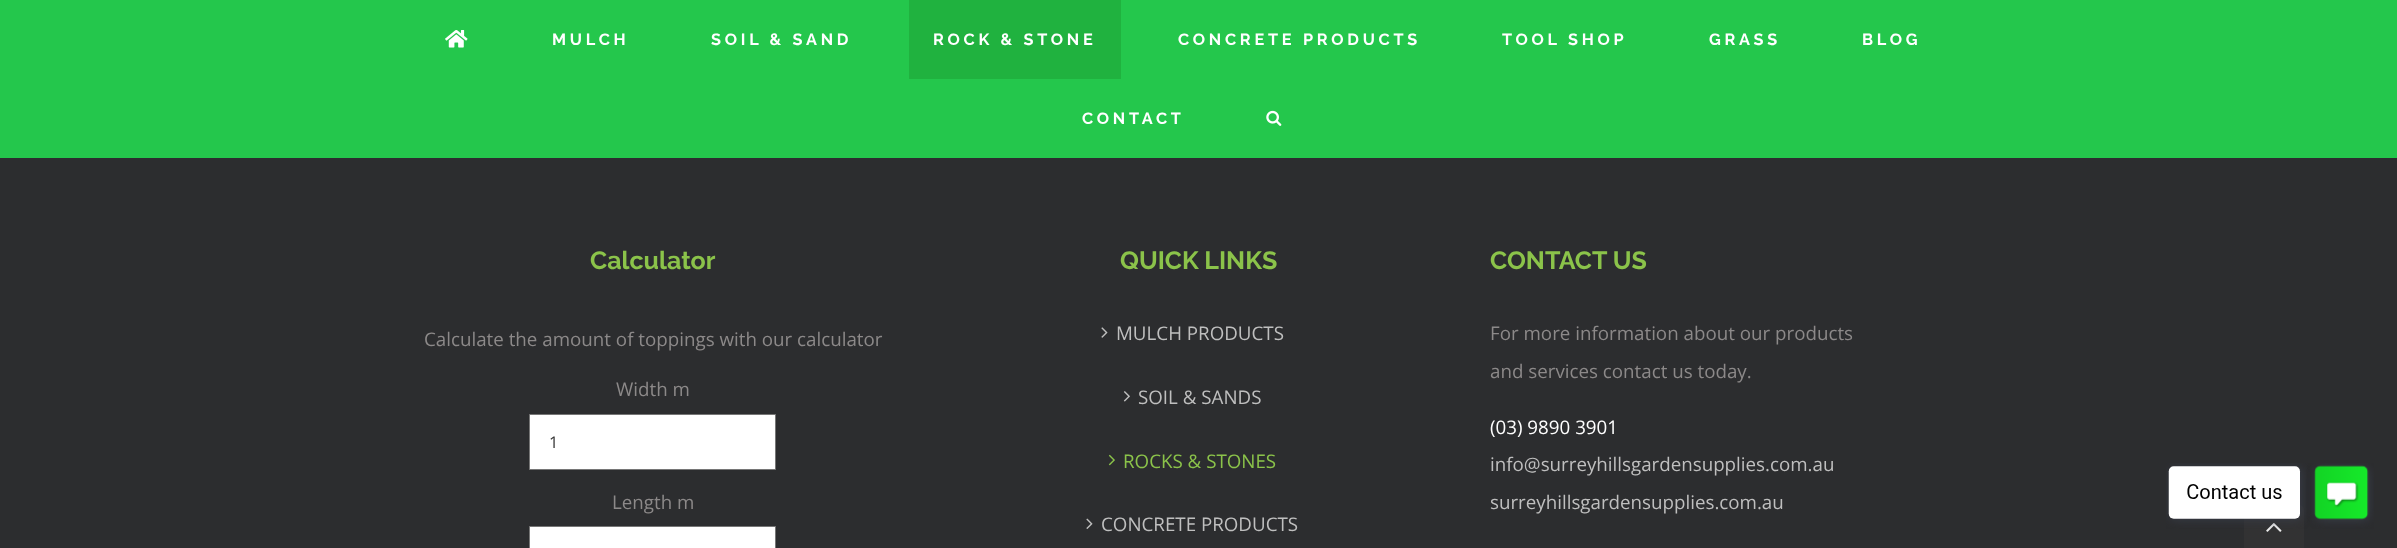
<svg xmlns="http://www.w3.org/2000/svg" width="2397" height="548">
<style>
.a{font:bold 16.25px Raleway;letter-spacing:3.75px;fill:#fff}
.b{font:bold 25px Raleway;fill:#8bc34a}
.c{font:18.75px Open Sans;fill:#8c8989}
.d{font:16.25px Open Sans;fill:#333}
.e{font:18.75px Open Sans;fill:#bfbfbf}
.f{font:18.75px Open Sans;fill:#8bc34a}
.g{font:18.75px Open Sans;fill:#fff}
</style>
<rect width="100%" height="100%" fill="#2c2d2f"/>
<path fill="#24c74c" d="M0 0h2397v158H0z"/>
<image href="1.png" x="445" y="30" width="23" height="18"/>
<path fill="#20b23f" d="M909 0h212v79H909z"/>
<image href="2.png" x="1266" y="110" width="16" height="16"/>
<path fill="#fff" stroke="#767676" d="M529.5 414.5h246v55H529.5z"/>
<path fill="#fff" stroke="#767676" d="M529.5 526.5h246v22H529.5z"/>
<image href="3.png" x="1101" y="327" width="7" height="11"/>
<image href="4.png" x="1123" y="391" width="7" height="11"/>
<image href="5.png" x="1108" y="454" width="7" height="12"/>
<image href="6.png" x="1086" y="518" width="7" height="11"/>
<path fill="#323233" d="M2249 505h50c3 0 5 2 5 5v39h-60v-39c0-3 2-5 5-5z"/>
<image href="8.png" x="2266" y="523" width="16" height="9"/>
<image href="7.png" x="2166" y="463" width="208" height="66"/>
<text class="a" x="552" y="45">MULCH</text>
<text class="a" x="711" y="45">SOIL &amp; SAND</text>
<text class="a" x="933" y="45">ROCK &amp; STONE</text>
<text class="a" x="1178" y="45">CONCRETE PRODUCTS</text>
<text class="a" x="1502" y="45">TOOL SHOP</text>
<text class="a" x="1709" y="45">GRASS</text>
<text class="a" x="1862" y="45">BLOG</text>
<text class="a" x="1082" y="124">CONTACT</text>
<text class="b" x="590" y="269">Calculator</text>
<text class="c" x="424" y="346">Calculate the amount of toppings with our calculator</text>
<text class="c" x="616" y="396">Width m</text>
<text class="d" x="549" y="448">1</text>
<text class="c" x="612" y="509">Length m</text>
<text class="b" x="1120" y="269">QUICK LINKS</text>
<text class="e" x="1116" y="340">MULCH PRODUCTS</text>
<text class="e" x="1138" y="404">SOIL &amp; SANDS</text>
<text class="f" x="1123" y="468">ROCKS &amp; STONES</text>
<text class="e" x="1101" y="531">CONCRETE PRODUCTS</text>
<text class="b" x="1490" y="269">CONTACT US</text>
<text class="c" x="1490" y="340">For more information about our products</text>
<text class="c" x="1490" y="378">and services contact us today.</text>
<text class="g" x="1490" y="434">(03) 9890 3901</text>
<text class="e" x="1490" y="471">info@surreyhillsgardensupplies.com.au</text>
<text class="e" x="1490" y="509">surreyhillsgardensupplies.com.au</text>
</svg>
